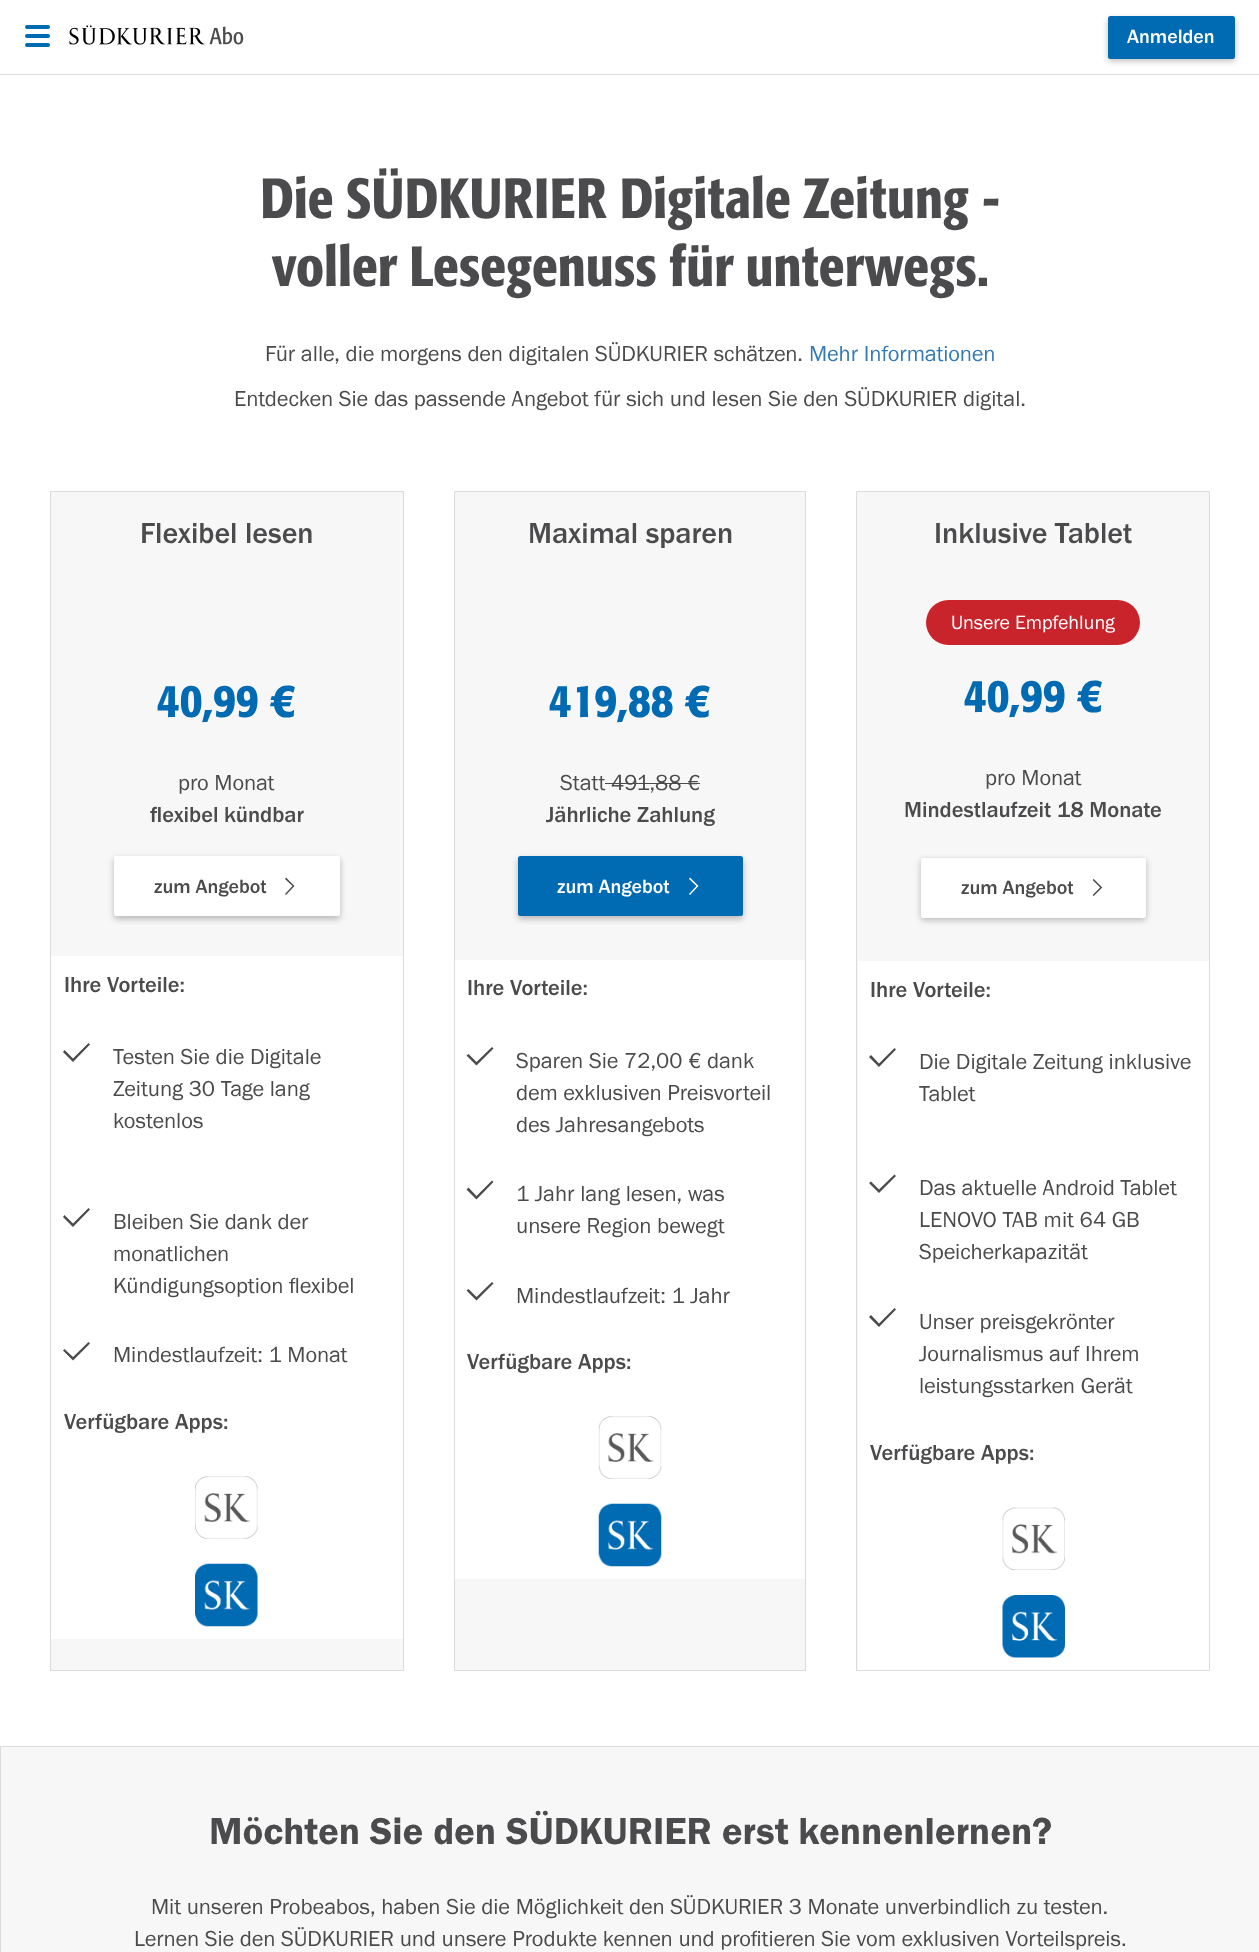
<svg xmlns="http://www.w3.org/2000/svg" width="1259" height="1952">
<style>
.a{font:500 20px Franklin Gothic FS;fill:#fff}
.b{font:500 56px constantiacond;fill:#4b4b4d}
.c{font:22.5px Franklin Gothic FS;fill:#4b4b4d}
.d{font:22.5px Franklin Gothic FS;fill:#337ab7}
.e{font:500 30px Franklin Gothic FS;fill:#4b4b4d}
.f{font:500 47.5px constantiacond;fill:#006ab2}
.g{font:500 22.5px Franklin Gothic FS;fill:#4b4b4d}
.h{font:500 20px Franklin Gothic FS;fill:#4b4b4d}
.i{font:20px Franklin Gothic FS;fill:#fff}
.j{font:600 38.9px Franklin Gothic FS;fill:#4b4b4d}
</style>
<rect width="100%" height="100%" fill="#fff"/>
<path fill="#dbdbdb" d="M0 74h1259v1H0z"/>
<rect fill="#006ab2" x="25" y="25" width="25" height="4" rx="2"/>
<rect fill="#006ab2" x="25" y="34" width="25" height="4" rx="2"/>
<rect fill="#006ab2" x="25" y="43" width="25" height="4" rx="2"/>
<image href="1.png" x="69" y="25" width="175" height="20"/>
<rect fill="#00000042" filter="blur(3px)" x="1108" y="19" width="127" height="42" rx="2.5"/>
<rect fill="#006ab2" x="1108" y="16" width="127" height="43" rx="2.5"/>
<path fill="#f7f7f7" stroke="#dbdbdb" d="M50.5 491.5h353v1179H50.5z"/>
<rect fill="#00000042" filter="blur(3px)" x="114" y="859" width="226" height="60" rx="2.5"/>
<rect fill="#fff" x="114" y="856" width="226" height="60" rx="2.5"/>
<path fill="#4b4b4d" d="M286 895l-1-1l7.5-8l-7.5-7l1-1.5l8.5 8.5z"/>
<path fill="#fff" d="M51 956h352v683H51z"/>
<path fill="#4b4b4d" d="M73 1058.5l15.5-15.5l1.5 1.5l-17 17.5l-10-10l1.5-2z"/>
<path fill="#4b4b4d" d="M73 1223.5l15.5-15.5l1.5 1.5l-17 17.5l-10-10l1.5-2z"/>
<path fill="#4b4b4d" d="M73 1357l15.5-15l1.5 1.5l-17 17l-10-10l1.5-1.5z"/>
<image href="2.png" x="195" y="1476" width="63" height="63"/>
<image href="3.png" x="195" y="1563" width="63" height="64"/>
<path fill="#f7f7f7" stroke="#dbdbdb" d="M454.5 491.5h351v1179H454.5z"/>
<path fill="#4b4b4d" d="M605 783h95v1H605z"/>
<rect fill="#00000042" filter="blur(3px)" x="518" y="859" width="225" height="60" rx="2.5"/>
<rect fill="#006ab2" x="518" y="856" width="225" height="60" rx="2.5"/>
<path fill="#fff" d="M690 895l-1-1l7.5-8l-7.5-7l1-1.5l8.5 8.5z"/>
<path fill="#fff" d="M455 960h350v619H455z"/>
<path fill="#4b4b4d" d="M476.5 1062l15.5-15l1.5 1.5l-17 17l-10-10l2-1.5z"/>
<path fill="#4b4b4d" d="M476.5 1196l15.5-15.5l1.5 1.5l-17 17.5l-10-10l2-2z"/>
<path fill="#4b4b4d" d="M476.5 1297l15.5-15l1.5 1.5l-17 17l-10-10l2-1.5z"/>
<image href="4.png" x="598" y="1416" width="64" height="63"/>
<image href="5.png" x="598" y="1503" width="64" height="64"/>
<path fill="#f7f7f7" stroke="#dbdbdb" d="M856.5 491.5h353v1179H856.5z"/>
<rect fill="#c9242c" x="926" y="600" width="214" height="45" rx="22.5"/>
<rect fill="#00000042" filter="blur(3px)" x="921" y="860" width="225" height="60" rx="2.5"/>
<rect fill="#fff" x="921" y="858" width="225" height="60" rx="2.5"/>
<image href="6.png" x="1092" y="879" width="11" height="17"/>
<path fill="#fff" d="M858 961h351v709H858z"/>
<path fill="#4b4b4d" d="M879 1063.5l15.5-15.5l1.5 1.5l-17 17.5l-10-10l2-2z"/>
<path fill="#4b4b4d" d="M879 1189.5l15.5-15l1.5 1.5l-17 17l-10-10l2-1.5z"/>
<path fill="#4b4b4d" d="M879 1323.5l15.5-15.5l1.5 1.5l-17 17.5l-10-10l2-2z"/>
<image href="7.png" x="1002" y="1507" width="63" height="63"/>
<image href="8.png" x="1002" y="1595" width="63" height="63"/>
<path fill="#f7f7f7" stroke="#dbdbdb" d="M0.5 1746.5h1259v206H0.5z"/>
<text class="a" x="1127" y="43">Anmelden</text>
<text class="b" x="260" y="218">Die SÜDKURIER Digitale Zeitung -</text>
<text class="b" x="272" y="286">voller Lesegenuss für unterwegs.</text>
<text class="c" x="265" y="361">Für alle, die morgens den digitalen SÜDKURIER schätzen.</text>
<text class="d" x="809" y="361">Mehr Informationen</text>
<text class="c" x="234" y="406">Entdecken Sie das passende Angebot für sich und lesen Sie den SÜDKURIER digital.</text>
<text class="e" x="140" y="543">Flexibel lesen</text>
<text class="f" x="157" y="717">40,99 €</text>
<text class="c" x="178" y="790">pro Monat</text>
<text class="g" x="150" y="822">flexibel kündbar</text>
<text class="h" x="154" y="893">zum Angebot</text>
<text class="g" x="64" y="992">Ihre Vorteile:</text>
<text class="c" x="113" y="1064">Testen Sie die Digitale</text>
<text class="c" x="113" y="1096">Zeitung 30 Tage lang</text>
<text class="c" x="113" y="1128">kostenlos</text>
<text class="c" x="113" y="1229">Bleiben Sie dank der</text>
<text class="c" x="113" y="1261">monatlichen</text>
<text class="c" x="113" y="1293">Kündigungsoption flexibel</text>
<text class="c" x="113" y="1362">Mindestlaufzeit: 1 Monat</text>
<text class="g" x="64" y="1429">Verfügbare Apps:</text>
<text class="e" x="528" y="543">Maximal sparen</text>
<text class="f" x="549" y="717">419,88 €</text>
<text class="c" x="560" y="790">Statt 491,88 €</text>
<text class="g" x="546" y="822">Jährliche Zahlung</text>
<text class="a" x="557" y="893">zum Angebot</text>
<text class="g" x="467" y="995">Ihre Vorteile:</text>
<text class="c" x="516" y="1068">Sparen Sie 72,00 € dank</text>
<text class="c" x="516" y="1100">dem exklusiven Preisvorteil</text>
<text class="c" x="516" y="1132">des Jahresangebots</text>
<text class="c" x="516" y="1201">1 Jahr lang lesen, was</text>
<text class="c" x="516" y="1233">unsere Region bewegt</text>
<text class="c" x="516" y="1303">Mindestlaufzeit: 1 Jahr</text>
<text class="g" x="467" y="1369">Verfügbare Apps:</text>
<text class="e" x="934" y="543">Inklusive Tablet</text>
<text class="i" x="951" y="629">Unsere Empfehlung</text>
<text class="f" x="964" y="712">40,99 €</text>
<text class="c" x="985" y="785">pro Monat</text>
<text class="g" x="904" y="817">Mindestlaufzeit 18 Monate</text>
<text class="h" x="961" y="894">zum Angebot</text>
<text class="g" x="870" y="997">Ihre Vorteile:</text>
<text class="c" x="919" y="1069">Die Digitale Zeitung inklusive</text>
<text class="c" x="919" y="1101">Tablet</text>
<text class="c" x="919" y="1195">Das aktuelle Android Tablet</text>
<text class="c" x="919" y="1227">LENOVO TAB mit 64 GB</text>
<text class="c" x="919" y="1259">Speicherkapazität</text>
<text class="c" x="919" y="1329">Unser preisgekrönter</text>
<text class="c" x="919" y="1361">Journalismus auf Ihrem</text>
<text class="c" x="919" y="1393">leistungsstarken Gerät</text>
<text class="g" x="870" y="1460">Verfügbare Apps:</text>
<text class="j" x="209" y="1844">Möchten Sie den SÜDKURIER erst kennenlernen?</text>
<text class="c" x="151" y="1914">Mit unseren Probeabos, haben Sie die Möglichkeit den SÜDKURIER 3 Monate unverbindlich zu testen.</text>
<text class="c" x="134" y="1946">Lernen Sie den SÜDKURIER und unsere Produkte kennen und profitieren Sie vom exklusiven Vorteilspreis.</text>
</svg>
